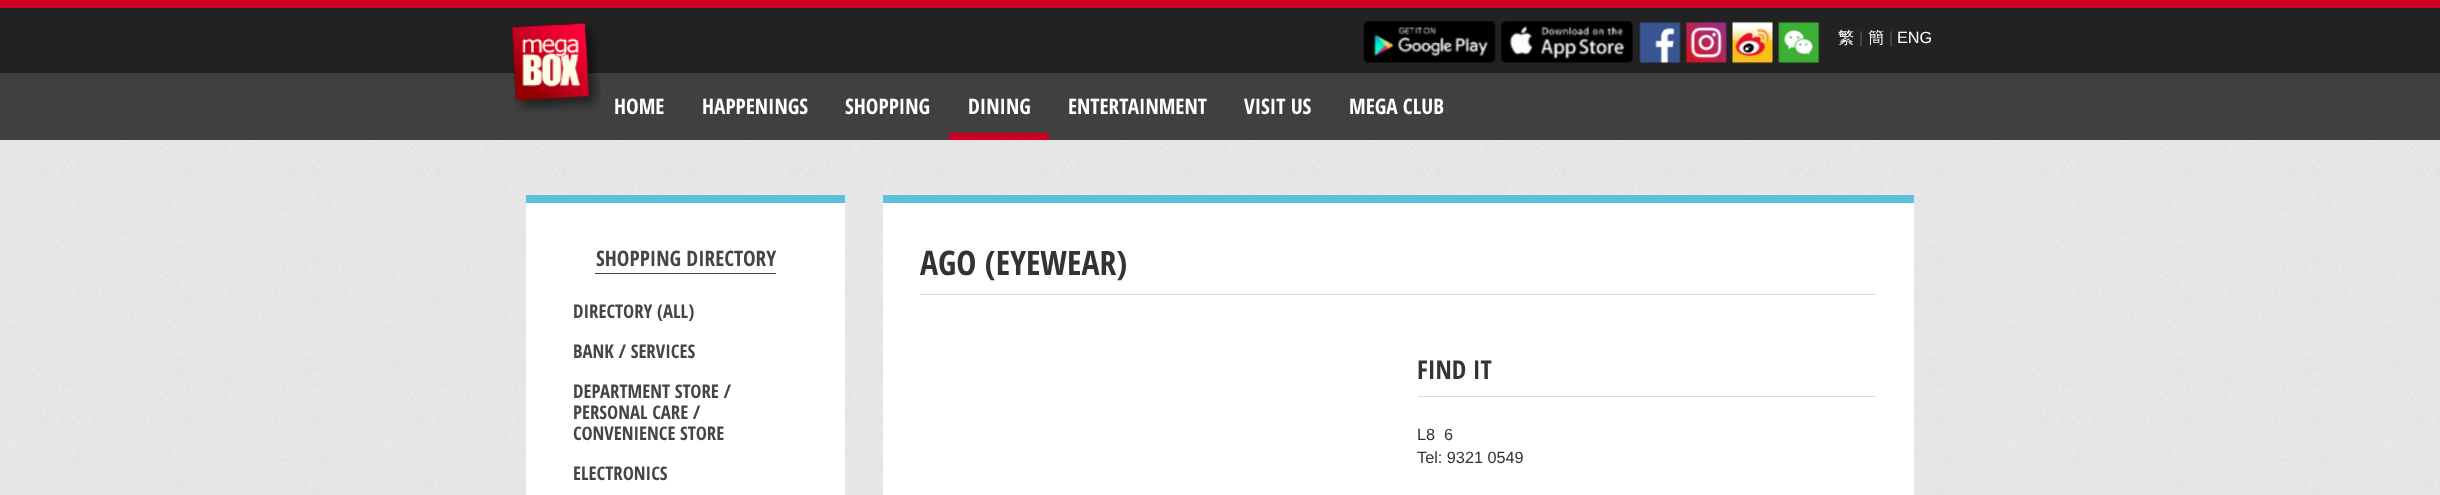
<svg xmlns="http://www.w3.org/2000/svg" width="2440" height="495">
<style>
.a{font:500 16.25px WenQuanYi Zen Hei;fill:#fff}
.b{font:16.25px Liberation Sans;fill:#555}
.c{font:16.25px Liberation Sans;fill:#fff}
.d{font:bold 21.25px Open Sans Condensed;fill:#fff}
.e{font:bold 21.25px Open Sans Condensed;fill:#454545}
.f{font:bold 18.75px Open Sans Condensed;fill:#454545}
.g{font:bold 33.75px Open Sans Condensed;fill:#333}
.h{font:bold 26px Open Sans Condensed;fill:#333}
.i{font:16.25px Liberation Sans;fill:#333}
</style>
<rect width="100%" height="100%" fill="#fff"/>
<image href="1.png" x="0" y="73" width="2440" height="422"/>
<path fill="#222" d="M0 8h2440v65H0z"/>
<path fill="#161616cc" d="M0 73h2440v67H0z"/>
<image href="2.png" x="511" y="22" width="90" height="90"/>
<path fill="#d00024" d="M0 0h2440v8H0z"/>
<image href="3.png" x="1363" y="21" width="133" height="42"/>
<image href="4.png" x="1500" y="21" width="133" height="42"/>
<image href="5.png" x="1639" y="22" width="42" height="42"/>
<image href="6.png" x="1685" y="22" width="42" height="42"/>
<image href="7.png" x="1732" y="22" width="41" height="42"/>
<image href="8.png" x="1778" y="22" width="42" height="42"/>
<path fill="#d00024" d="M949 133h100v7H949z"/>
<path fill="#fff" d="M526 203h319v292H526z"/>
<path fill="#5bc0de" d="M526 195h319v8H526z"/>
<path fill="#454545" d="M595 273h181v1H595z"/>
<path fill="#fff" d="M883 203h1031v292H883z"/>
<path fill="#5bc0de" d="M883 195h1031v8H883z"/>
<path fill="#ddd" d="M920 294h956v1H920z"/>
<path fill="#ddd" d="M1418 396h458v1H1418z"/>
<text class="a" x="1838" y="43">繁</text>
<text class="b" x="1859" y="43">|</text>
<text class="a" x="1868" y="43">簡</text>
<text class="b" x="1889" y="43">|</text>
<text class="c" x="1897" y="43">ENG</text>
<text class="d" x="614" y="114">HOME</text>
<text class="d" x="702" y="114">HAPPENINGS</text>
<text class="d" x="845" y="114">SHOPPING</text>
<text class="d" x="968" y="114">DINING</text>
<text class="d" x="1068" y="114">ENTERTAINMENT</text>
<text class="d" x="1244" y="114">VISIT US</text>
<text class="d" x="1349" y="114">MEGA CLUB</text>
<text class="e" x="596" y="266">SHOPPING DIRECTORY</text>
<text class="f" x="573" y="318">DIRECTORY (ALL)</text>
<text class="f" x="573" y="358">BANK / SERVICES</text>
<text class="f" x="573" y="398">DEPARTMENT STORE /</text>
<text class="f" x="573" y="419">PERSONAL CARE /</text>
<text class="f" x="573" y="440">CONVENIENCE STORE</text>
<text class="f" x="573" y="480">ELECTRONICS</text>
<text class="g" x="920" y="275">AGO (EYEWEAR)</text>
<text class="h" x="1417" y="379">FIND IT</text>
<text class="i" xml:space="preserve" x="1417" y="440">L8  6</text>
<text class="i" x="1417" y="463">Tel: 9321 0549</text>
</svg>
